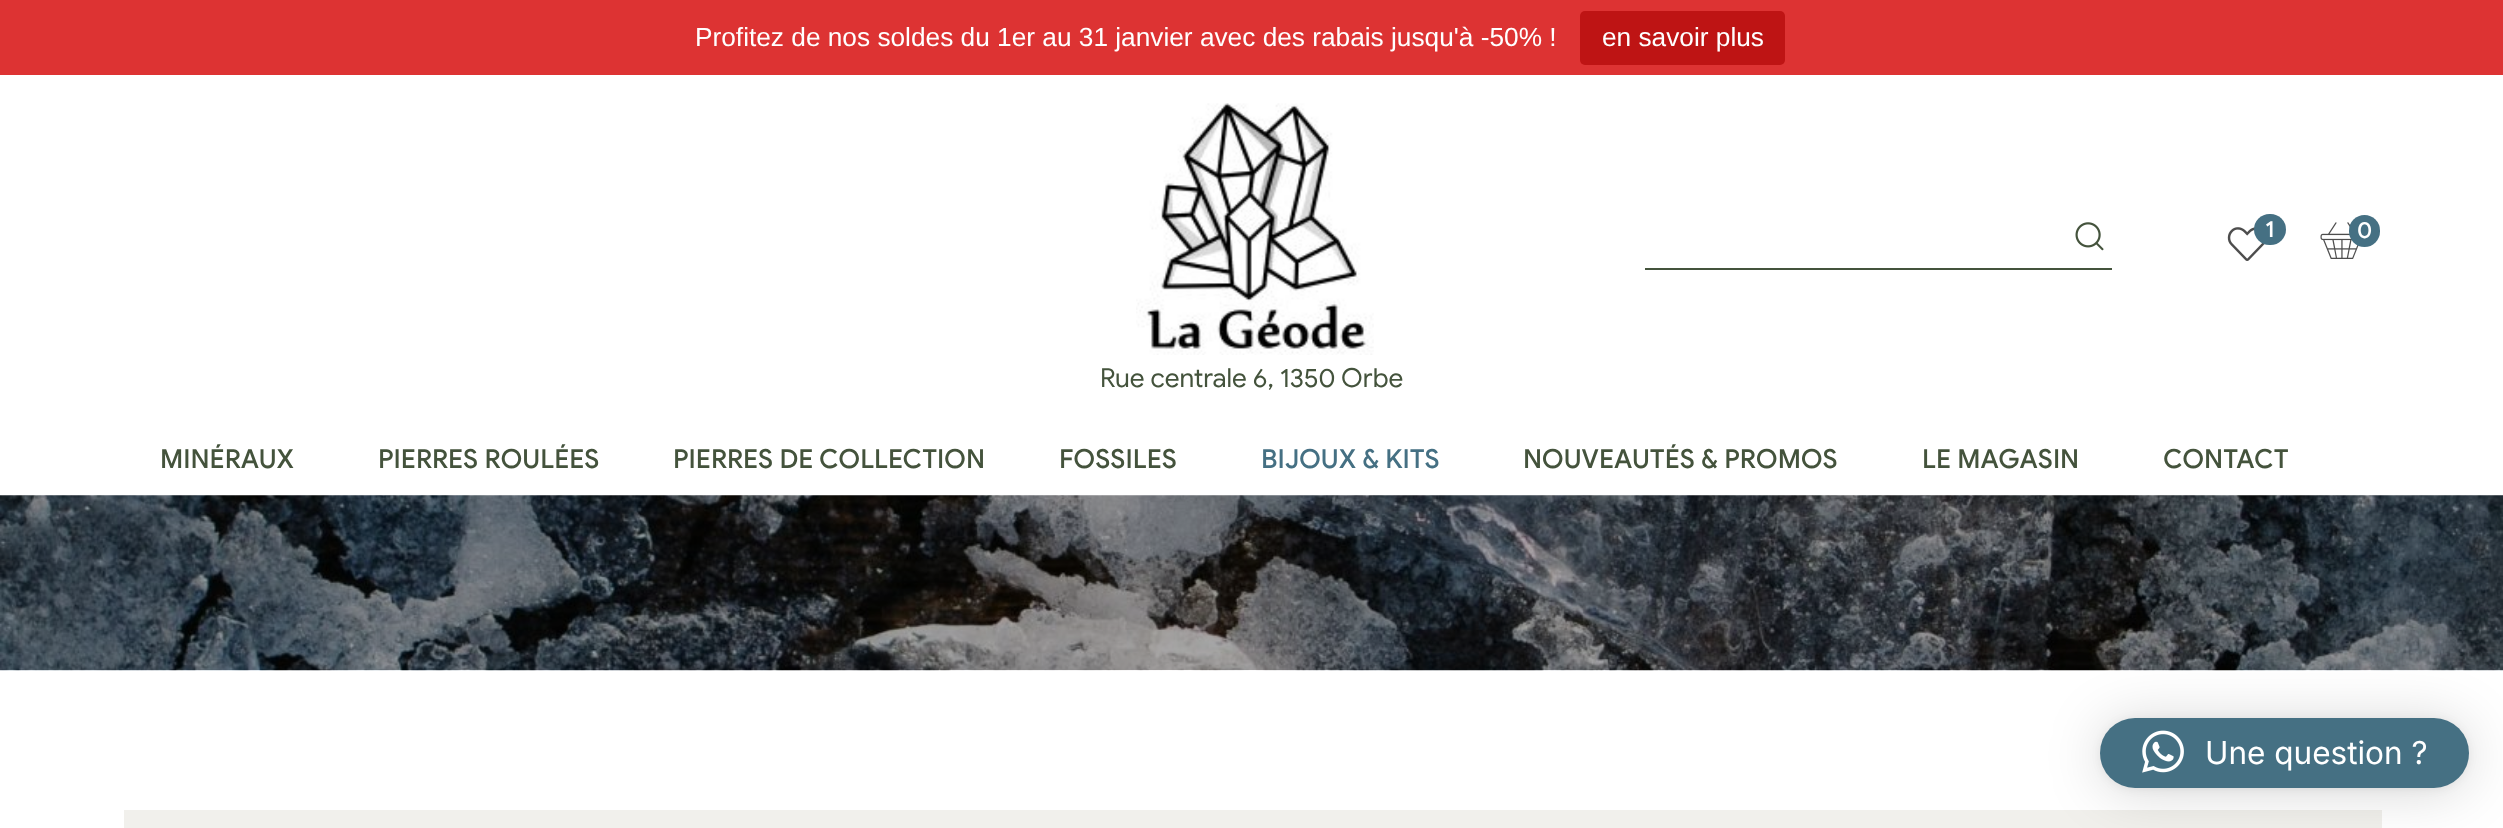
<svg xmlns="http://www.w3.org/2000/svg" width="2503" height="828">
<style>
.a{font:26.25px Liberation Sans;fill:#fff}
.b{font:500 23px Google Sans;fill:#fff}
.c{font:26.25px Google Sans;fill:#44533c}
.d{font:500 26.25px Google Sans;fill:#44533c}
.e{font:500 26.25px Google Sans;fill:#457083}
.f{font:31.5px Inter;fill:#fff}
</style>
<rect width="100%" height="100%" fill="#fff"/>
<path fill="#d33" d="M0 0h2503v75H0z"/>
<rect fill="#be1414" x="1580" y="11" width="205" height="54" rx="5"/>
<image href="1.png" x="2075" y="222" width="29" height="29"/>
<path fill="#44533c" d="M1645 268h467v2H1645z"/>
<image href="2.png" x="2227" y="227" width="38" height="34"/>
<rect fill="#457083" x="2254" y="214" width="32" height="31" rx="15.5"/>
<image href="3.png" x="2320" y="222" width="39" height="37"/>
<rect fill="#457083" x="2349" y="215" width="31" height="32" rx="15.5"/>
<image href="4.png" x="1136" y="103" width="238" height="252"/>
<image href="5.png" x="0" y="495" width="2503" height="176"/>
<path fill="#f1f0ec" d="M124 810h2258v18H124z"/>
<rect fill="#00000029" filter="blur(28px)" x="2100" y="721" width="369" height="70" rx="35"/>
<rect fill="#0000000f" filter="blur(5px)" x="2100" y="719" width="369" height="70" rx="35"/>
<rect fill="#457083" x="2100" y="718" width="369" height="70" rx="35"/>
<image href="6.png" x="2142" y="730" width="42" height="43"/>
<text class="a" x="695" y="46">Profitez de nos soldes du 1er au 31 janvier avec des rabais jusqu'à -50% !</text>
<text class="a" x="1602" y="46">en savoir plus</text>
<text class="b" x="2265" y="237">1</text>
<text class="b" x="2357" y="238">0</text>
<text class="c" x="1100" y="387">Rue centrale 6, 1350 Orbe</text>
<text class="d" x="160" y="468">MINÉRAUX</text>
<text class="d" x="378" y="468">PIERRES ROULÉES</text>
<text class="d" x="673" y="468">PIERRES DE COLLECTION</text>
<text class="d" x="1059" y="468">FOSSILES</text>
<text class="e" x="1261" y="468">BIJOUX &amp; KITS</text>
<text class="d" x="1523" y="468">NOUVEAUTÉS &amp; PROMOS</text>
<text class="d" x="1922" y="468">LE MAGASIN</text>
<text class="d" x="2163" y="468">CONTACT</text>
<text class="f" x="2205" y="764">Une question ?</text>
</svg>
